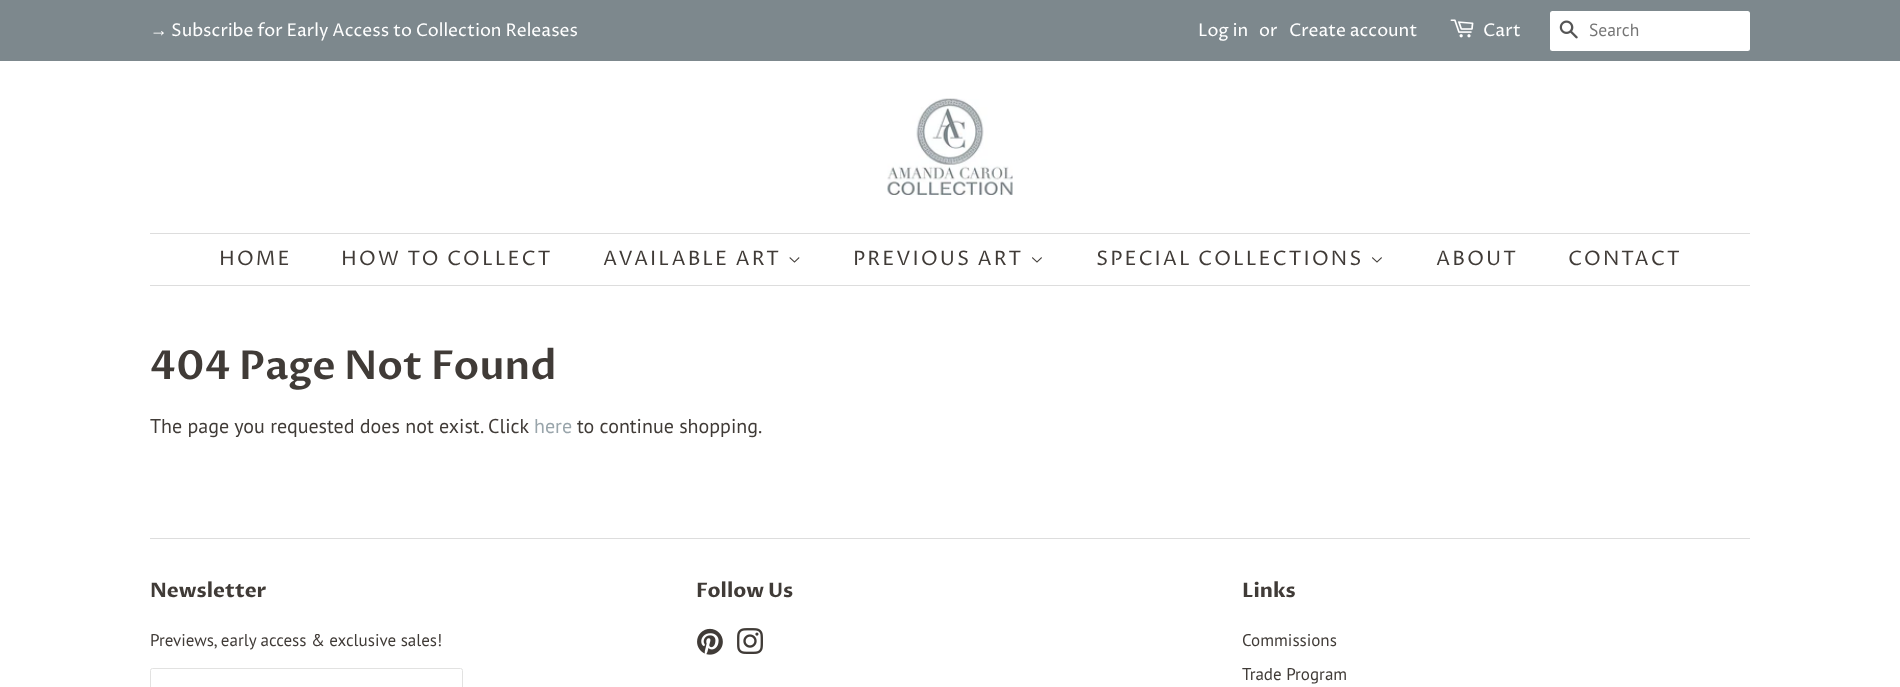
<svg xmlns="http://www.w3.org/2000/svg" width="1900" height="687">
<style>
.a{font:17.5px Liberation Sans;fill:#fff}
.b{font:17.5px Proza Libre;fill:#fff}
.c{font:17.5px PT Sans;fill:#757575}
.d{font:20px Proza Libre;letter-spacing:2px;fill:#403b37}
.e{font:600 40px Proza Libre;fill:#403b37}
.f{font:20px PT Sans;fill:#403b37}
.g{font:20px PT Sans;fill:#99a5ab}
.h{font:bold 20px Proza Libre;fill:#403b37}
.i{font:17px PT Sans;fill:#403b37}
</style>
<rect width="100%" height="100%" fill="#fff"/>
<path fill="#7d888d" d="M0 0h1900v61H0z"/>
<image href="1.png" x="1450" y="19" width="24" height="19"/>
<rect fill="#fff" x="1550" y="11" width="200" height="40" rx="2.5"/>
<image href="2.png" x="1559" y="20" width="19" height="19"/>
<image href="3.png" x="887" y="98" width="126" height="97"/>
<path fill="#ddd" d="M150 233h1600v1H150z"/>
<path fill="#ddd" d="M150 285h1600v1H150z"/>
<image href="4.png" x="789" y="257" width="11" height="6"/>
<image href="5.png" x="1032" y="257" width="10" height="6"/>
<image href="5.png" x="1372" y="257" width="10" height="6"/>
<path fill="#ddd" d="M150 538h1600v1H150z"/>
<rect fill="none" stroke="#e2e2e1" x="150.5" y="668.5" width="312" height="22" rx="2"/>
<image href="6.png" x="697" y="628" width="26" height="27"/>
<image href="7.png" x="737" y="628" width="26" height="26"/>
<text class="a" x="150" y="36">→</text>
<text class="b" x="171" y="36">Subscribe for Early Access to Collection Releases</text>
<text class="b" x="1198" y="36">Log in</text>
<text class="b" x="1259" y="36">or</text>
<text class="b" x="1289" y="36">Create account</text>
<text class="b" x="1483" y="36">Cart</text>
<text class="c" x="1589" y="36">Search</text>
<text class="d" x="219" y="265">HOME</text>
<text class="d" x="341" y="265">HOW TO COLLECT</text>
<text class="d" x="603" y="265">AVAILABLE ART</text>
<text class="d" x="853" y="265">PREVIOUS ART</text>
<text class="d" x="1096" y="265">SPECIAL COLLECTIONS</text>
<text class="d" x="1436" y="265">ABOUT</text>
<text class="d" x="1568" y="265">CONTACT</text>
<text class="e" x="150" y="379">404 Page Not Found</text>
<text class="f" x="150" y="433">The page you requested does not exist. Click</text>
<text class="g" x="534" y="433">here</text>
<text class="f" x="577" y="433">to continue shopping.</text>
<text class="h" x="150" y="597">Newsletter</text>
<text class="i" x="150" y="646">Previews, early access &amp; exclusive sales!</text>
<text class="h" x="696" y="597">Follow Us</text>
<text class="h" x="1242" y="597">Links</text>
<text class="i" x="1242" y="646">Commissions</text>
<text class="i" x="1242" y="680">Trade Program</text>
</svg>
